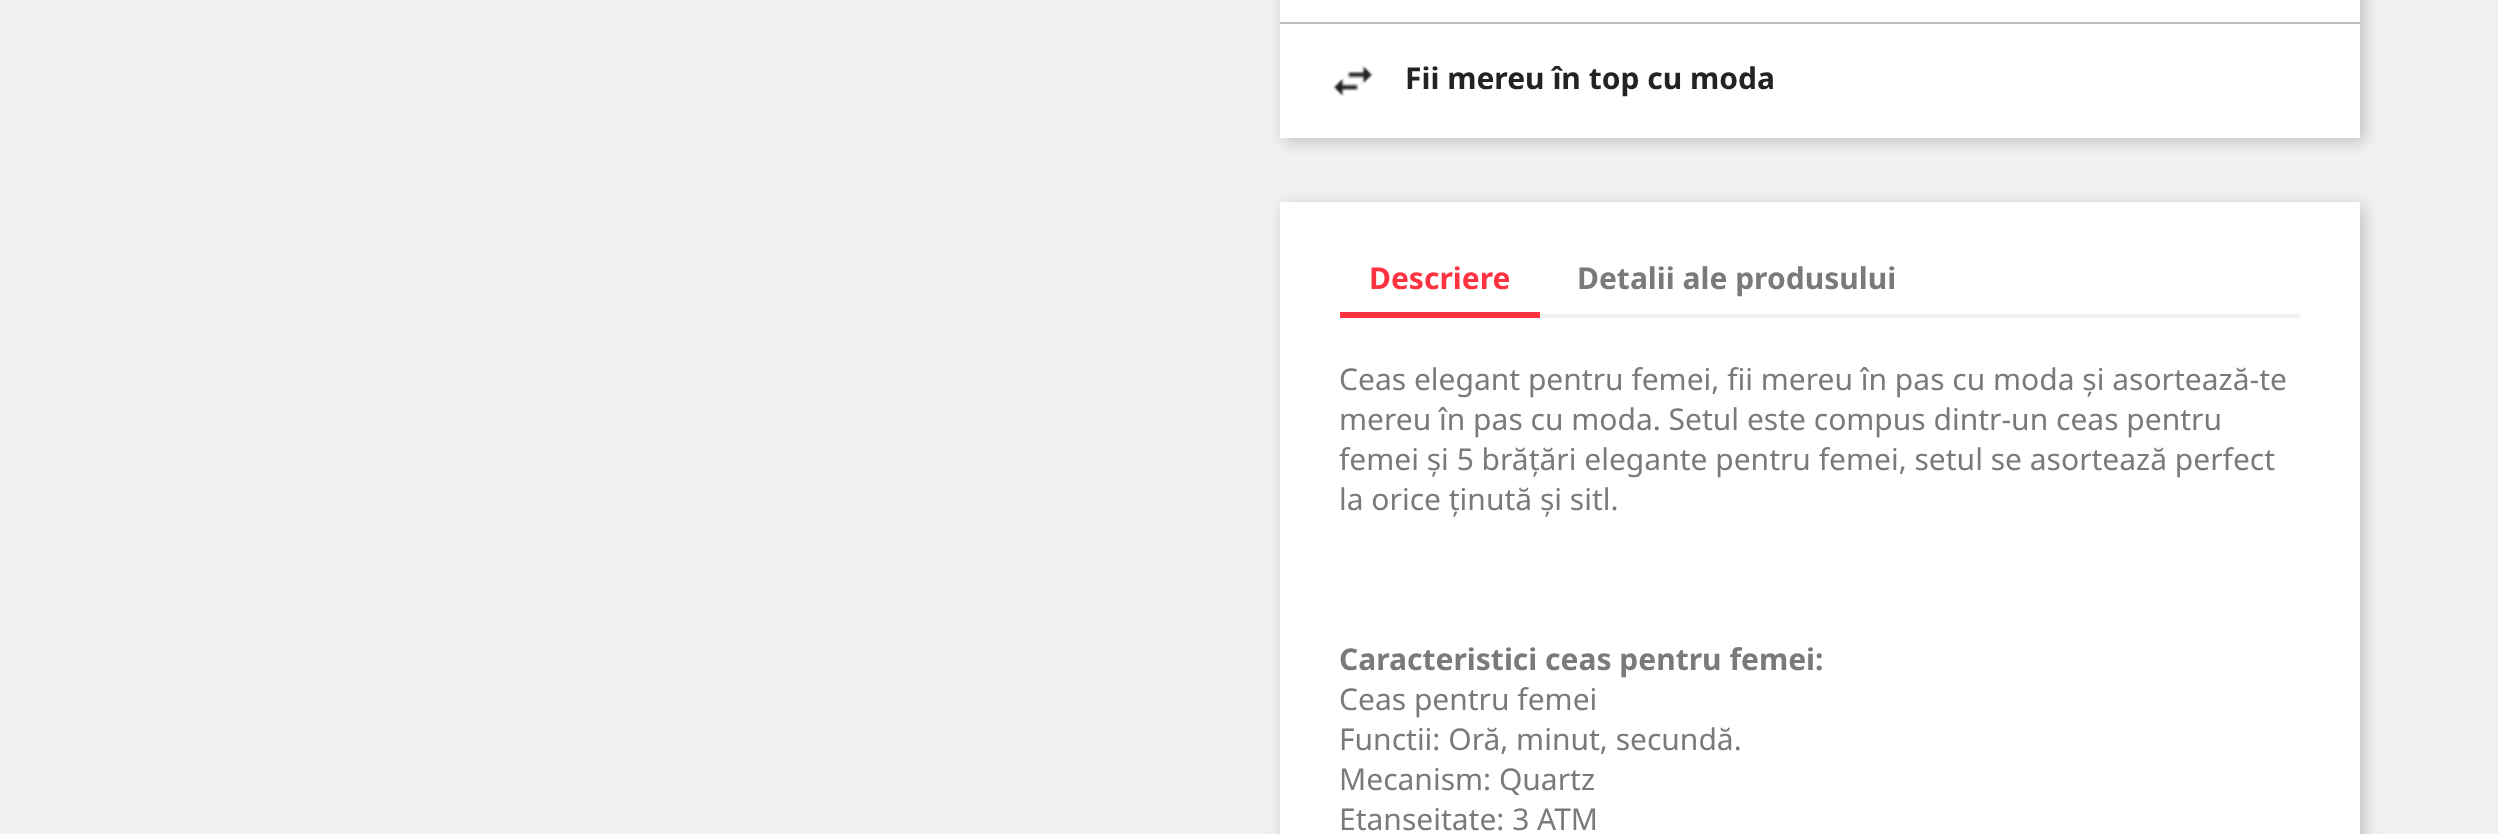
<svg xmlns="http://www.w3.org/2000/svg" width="2498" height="834">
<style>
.a{font:bold 30px Noto Sans;fill:#232323}
.b{font:bold 30px Noto Sans;fill:#ff3240}
.c{font:bold 30px Noto Sans;fill:#7a7a7a}
.d{font:30px Noto Sans;fill:#7a7a7a}
</style>
<rect width="100%" height="100%" fill="#f1f1f1"/>
<path fill="#00000033" filter="blur(8px)" d="M1284 -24h1080v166H1284z"/>
<path fill="#fff" d="M1280 0h1080v138H1280z"/>
<path fill="#bfbfbf" d="M1280 22h1080v2H1280z"/>
<image href="1.png" x="1333" y="65" width="40" height="32"/>
<path fill="#00000033" filter="blur(8px)" d="M1284 206h1080v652H1284z"/>
<path fill="#fff" d="M1280 202h1080v632H1280z"/>
<path fill="#f1f1f1" d="M1540 314h760v4H1540z"/>
<path fill="#ff3240" d="M1340 312h200v6H1340z"/>
<text class="a" x="1405" y="89">Fii mereu în top cu moda</text>
<text class="b" x="1369" y="289">Descriere</text>
<text class="c" x="1577" y="289">Detalii ale produsului</text>
<text class="d" x="1339" y="390">Ceas elegant pentru femei, fii mereu în pas cu moda și asortează-te</text>
<text class="d" x="1339" y="430">mereu în pas cu moda. Setul este compus dintr-un ceas pentru</text>
<text class="d" x="1339" y="470">femei și 5 brățări elegante pentru femei, setul se asortează perfect</text>
<text class="d" x="1339" y="510">la orice ținută și sitl.</text>
<text class="c" x="1339" y="670">Caracteristici ceas pentru femei:</text>
<text class="d" x="1339" y="710">Ceas pentru femei</text>
<text class="d" x="1339" y="750">Functii: Oră, minut, secundă.</text>
<text class="d" x="1339" y="790">Mecanism: Quartz</text>
<text class="d" x="1339" y="830">Etanseitate: 3 ATM</text>
</svg>
